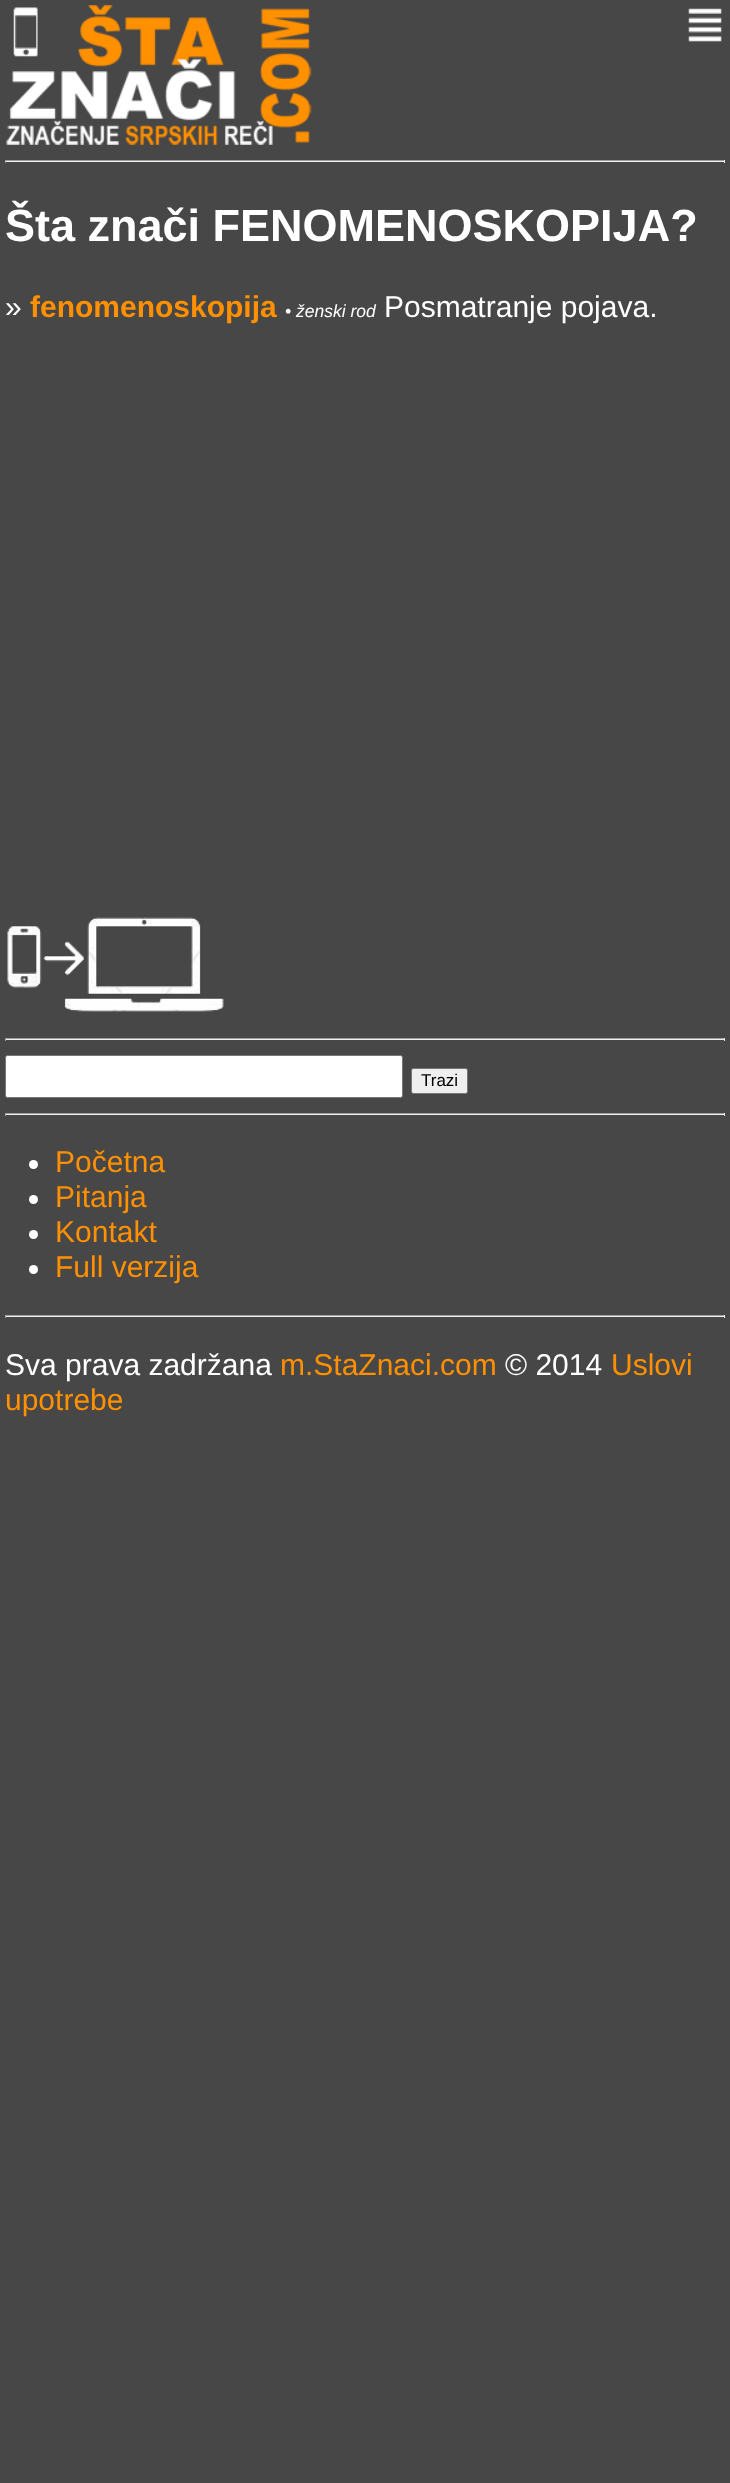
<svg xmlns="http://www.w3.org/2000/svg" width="730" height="2483">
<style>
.a{font:bold 45px Liberation Sans;fill:#fff}
.b{font:30px Liberation Sans;fill:#fff}
.c{font:bold 30px Liberation Sans;fill:#ff9000}
.d{font:italic 17.5px Liberation Sans;fill:#fff}
.e{font:17px Liberation Sans;fill:#000}
.f{font:30px Liberation Sans;fill:#ff9000}
</style>
<rect width="100%" height="100%" fill="#474747"/>
<image href="1.png" x="6" y="5" width="306" height="140"/>
<image href="2.png" x="688" y="8" width="34" height="34"/>
<path fill="#9f9f9f" d="M5 160h720v1H5z"/>
<path fill="#eee" d="M724 160h1v3H724z"/>
<path fill="#eee" d="M5 161h720v1H5z"/>
<path fill="#9f9f9f" d="M5 160h1v3H5z"/>
<image href="3.png" x="7" y="917" width="217" height="95"/>
<path fill="#9f9f9f" d="M5 1038h720v1H5z"/>
<path fill="#eee" d="M724 1038h1v3H724z"/>
<path fill="#eee" d="M5 1039h720v1H5z"/>
<path fill="#9f9f9f" d="M5 1038h1v3H5z"/>
<rect fill="#fff" stroke="#767676" x="5.5" y="1055.5" width="397" height="42" rx="2"/>
<rect fill="#efefef" stroke="#767676" x="411.5" y="1068.5" width="56" height="25" rx="2"/>
<path fill="#9f9f9f" d="M5 1113h720v1H5z"/>
<path fill="#eee" d="M724 1113h1v3H724z"/>
<path fill="#eee" d="M5 1114h720v1H5z"/>
<path fill="#9f9f9f" d="M5 1113h1v3H5z"/>
<circle fill="#fff" cx="33.5" cy="1164.5" r="4.5"/>
<circle fill="#fff" cx="33.5" cy="1199.5" r="4.5"/>
<circle fill="#fff" cx="33.5" cy="1234.5" r="4.5"/>
<circle fill="#fff" cx="33.5" cy="1269.5" r="4.5"/>
<path fill="#9f9f9f" d="M5 1315h720v1H5z"/>
<path fill="#eee" d="M724 1315h1v3H724z"/>
<path fill="#eee" d="M5 1316h720v1H5z"/>
<path fill="#9f9f9f" d="M5 1315h1v3H5z"/>
<text class="a" x="5" y="241">Šta znači FENOMENOSKOPIJA?</text>
<text class="b" x="5" y="317">»</text>
<text class="c" x="30" y="317">fenomenoskopija</text>
<text class="d" x="285" y="317">• ženski rod</text>
<text class="b" x="384" y="317">Posmatranje pojava.</text>
<text class="e" x="421" y="1086">Trazi</text>
<text class="f" x="55" y="1172">Početna</text>
<text class="f" x="55" y="1207">Pitanja</text>
<text class="f" x="55" y="1242">Kontakt</text>
<text class="f" x="55" y="1277">Full verzija</text>
<text class="b" x="5" y="1375">Sva prava zadržana</text>
<text class="f" x="280" y="1375">m.StaZnaci.com</text>
<text class="b" x="505" y="1375">© 2014</text>
<text class="f" x="611" y="1375">Uslovi</text>
<text class="f" x="5" y="1410">upotrebe</text>
</svg>
